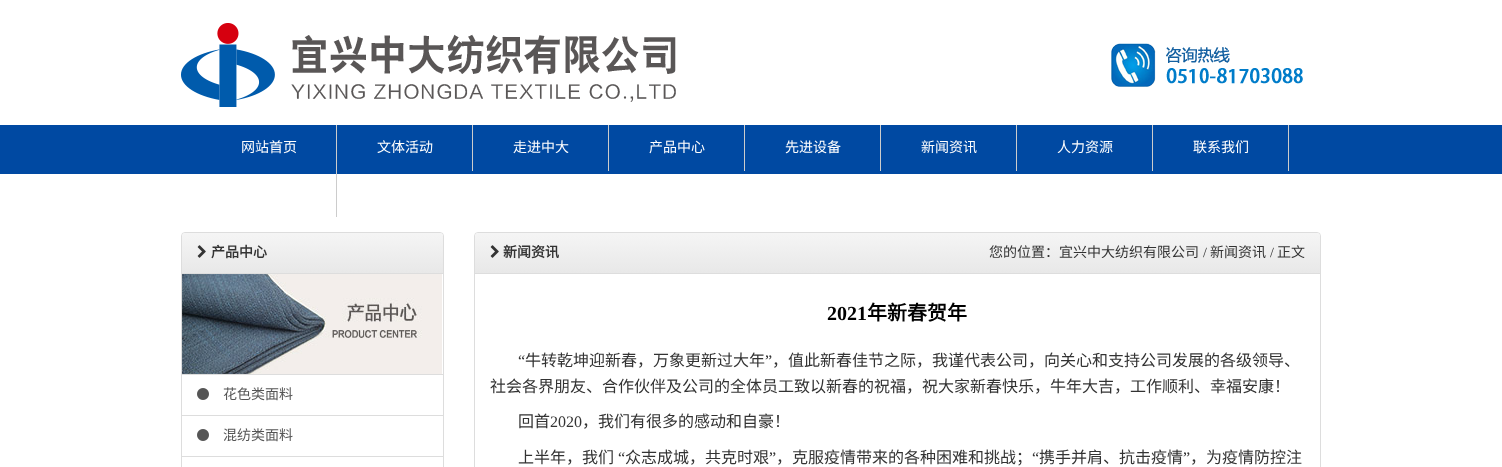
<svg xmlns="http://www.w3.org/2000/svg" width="1502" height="467">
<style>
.a{font:14px Noto Sans CJK SC;fill:#fff}
.b{font:bold 14px Noto Sans CJK SC;fill:#333}
.c{font:14px Noto Sans CJK SC;fill:#555}
.d{font:14px Noto Sans CJK SC;fill:#333}
.e{font:14px Liberation Serif;fill:#333}
.f{font:bold 20px Liberation Serif;fill:#000}
.g{font:bold 20px Noto Sans CJK SC;fill:#000}
.h{font:16px Liberation Serif;fill:#333}
.i{font:16px Noto Sans CJK SC;fill:#333}
</style>
<defs>
<linearGradient id="g1" gradientUnits="userSpaceOnUse" x1="313" y1="233" x2="313" y2="273"><stop offset="0" stop-color="#f5f5f5"/><stop offset="1" stop-color="#e8e8e8"/></linearGradient>
<linearGradient id="g2" gradientUnits="userSpaceOnUse" x1="898" y1="233" x2="898" y2="273"><stop offset="0" stop-color="#f5f5f5"/><stop offset="1" stop-color="#e8e8e8"/></linearGradient>
</defs>
<rect width="100%" height="100%" fill="#fff"/>
<image href="1.png" x="181" y="23" width="495" height="84"/>
<image href="2.png" x="1111" y="43" width="192" height="44"/>
<path fill="#0049a2" d="M0 125h1502v49H0z"/>
<path fill="#ccc" d="M336 125h1v92H336z"/>
<path fill="#ccc" d="M472 125h1v46H472z"/>
<path fill="#ccc" d="M608 125h1v46H608z"/>
<path fill="#ccc" d="M744 125h1v46H744z"/>
<path fill="#ccc" d="M880 125h1v46H880z"/>
<path fill="#ccc" d="M1016 125h1v46H1016z"/>
<path fill="#ccc" d="M1152 125h1v46H1152z"/>
<path fill="#ccc" d="M1288 125h1v46H1288z"/>
<rect fill="none" stroke="#ddd" x="181.5" y="232.5" width="262" height="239" rx="3.5"/>
<path fill="url(#g1)" d="M185 233h255c1.5 0 3 1.5 3 3v37h-261v-37c0-1.5 1.5-3 3-3z"/>
<path fill="#ddd" d="M182 273h261v1H182z"/>
<image href="3.png" x="197" y="245" width="9" height="13"/>
<image href="4.png" x="182" y="274" width="260" height="100"/>
<path fill="#ddd" d="M182 374h261v1H182z"/>
<path fill="#ddd" d="M182 415h261v1H182z"/>
<image href="5.png" x="197" y="388" width="12" height="12"/>
<path fill="#ddd" d="M182 456h261v1H182z"/>
<image href="5.png" x="197" y="429" width="12" height="12"/>
<rect fill="none" stroke="#ddd" x="474.5" y="232.5" width="846" height="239" rx="3.5"/>
<path fill="url(#g2)" d="M478 233h839c1.5 0 3 1.5 3 3v37h-845v-37c0-1.5 1.5-3 3-3z"/>
<path fill="#ddd" d="M475 273h845v1H475z"/>
<image href="3.png" x="490" y="245" width="9" height="13"/>
<text class="a" x="241" y="152">网站首页</text>
<text class="a" x="377" y="152">文体活动</text>
<text class="a" x="513" y="152">走进中大</text>
<text class="a" x="649" y="152">产品中心</text>
<text class="a" x="785" y="152">先进设备</text>
<text class="a" x="921" y="152">新闻资讯</text>
<text class="a" x="1057" y="152">人力资源</text>
<text class="a" x="1193" y="152">联系我们</text>
<text class="b" x="211" y="257">产品中心</text>
<text class="c" x="223" y="399">花色类面料</text>
<text class="c" x="223" y="440">混纺类面料</text>
<text class="b" x="503" y="257">新闻资讯</text>
<text class="d" x="989" y="257">您的位置：宜兴中大纺织有限公司</text>
<text class="e" x="1203" y="257">/</text>
<text class="d" x="1210" y="257">新闻资讯</text>
<text class="e" x="1270" y="257">/</text>
<text class="d" x="1277" y="257">正文</text>
<text class="f" x="827" y="320">2021</text>
<text class="g" x="867" y="320">年新春贺年</text>
<text class="h" x="518" y="366">“</text>
<text class="i" x="525" y="366">牛转乾坤迎新春，万象更新过大年</text>
<text class="h" x="765" y="366">”</text>
<text class="i" x="772" y="366">，值此新春佳节之际，我谨代表公司，向关心和支持公司发展的各级领导、</text>
<text class="i" x="490" y="392">社会各界朋友、合作伙伴及公司的全体员工致以新春的祝福，祝大家新春快乐，牛年大吉，工作顺利、幸福安康！</text>
<text class="i" x="518" y="427">回首</text>
<text class="h" x="550" y="427">2020</text>
<text class="i" x="582" y="427">，我们有很多的感动和自豪！</text>
<text class="i" x="518" y="463">上半年，我们</text>
<text class="h" x="618" y="463">“</text>
<text class="i" x="625" y="463">众志成城，共克时艰</text>
<text class="h" x="769" y="463">”</text>
<text class="i" x="776" y="463">，克服疫情带来的各种困难和挑战；</text>
<text class="h" x="1032" y="463">“</text>
<text class="i" x="1039" y="463">携手并肩、抗击疫情</text>
<text class="h" x="1183" y="463">”</text>
<text class="i" x="1190" y="463">，为疫情防控注</text>
</svg>
